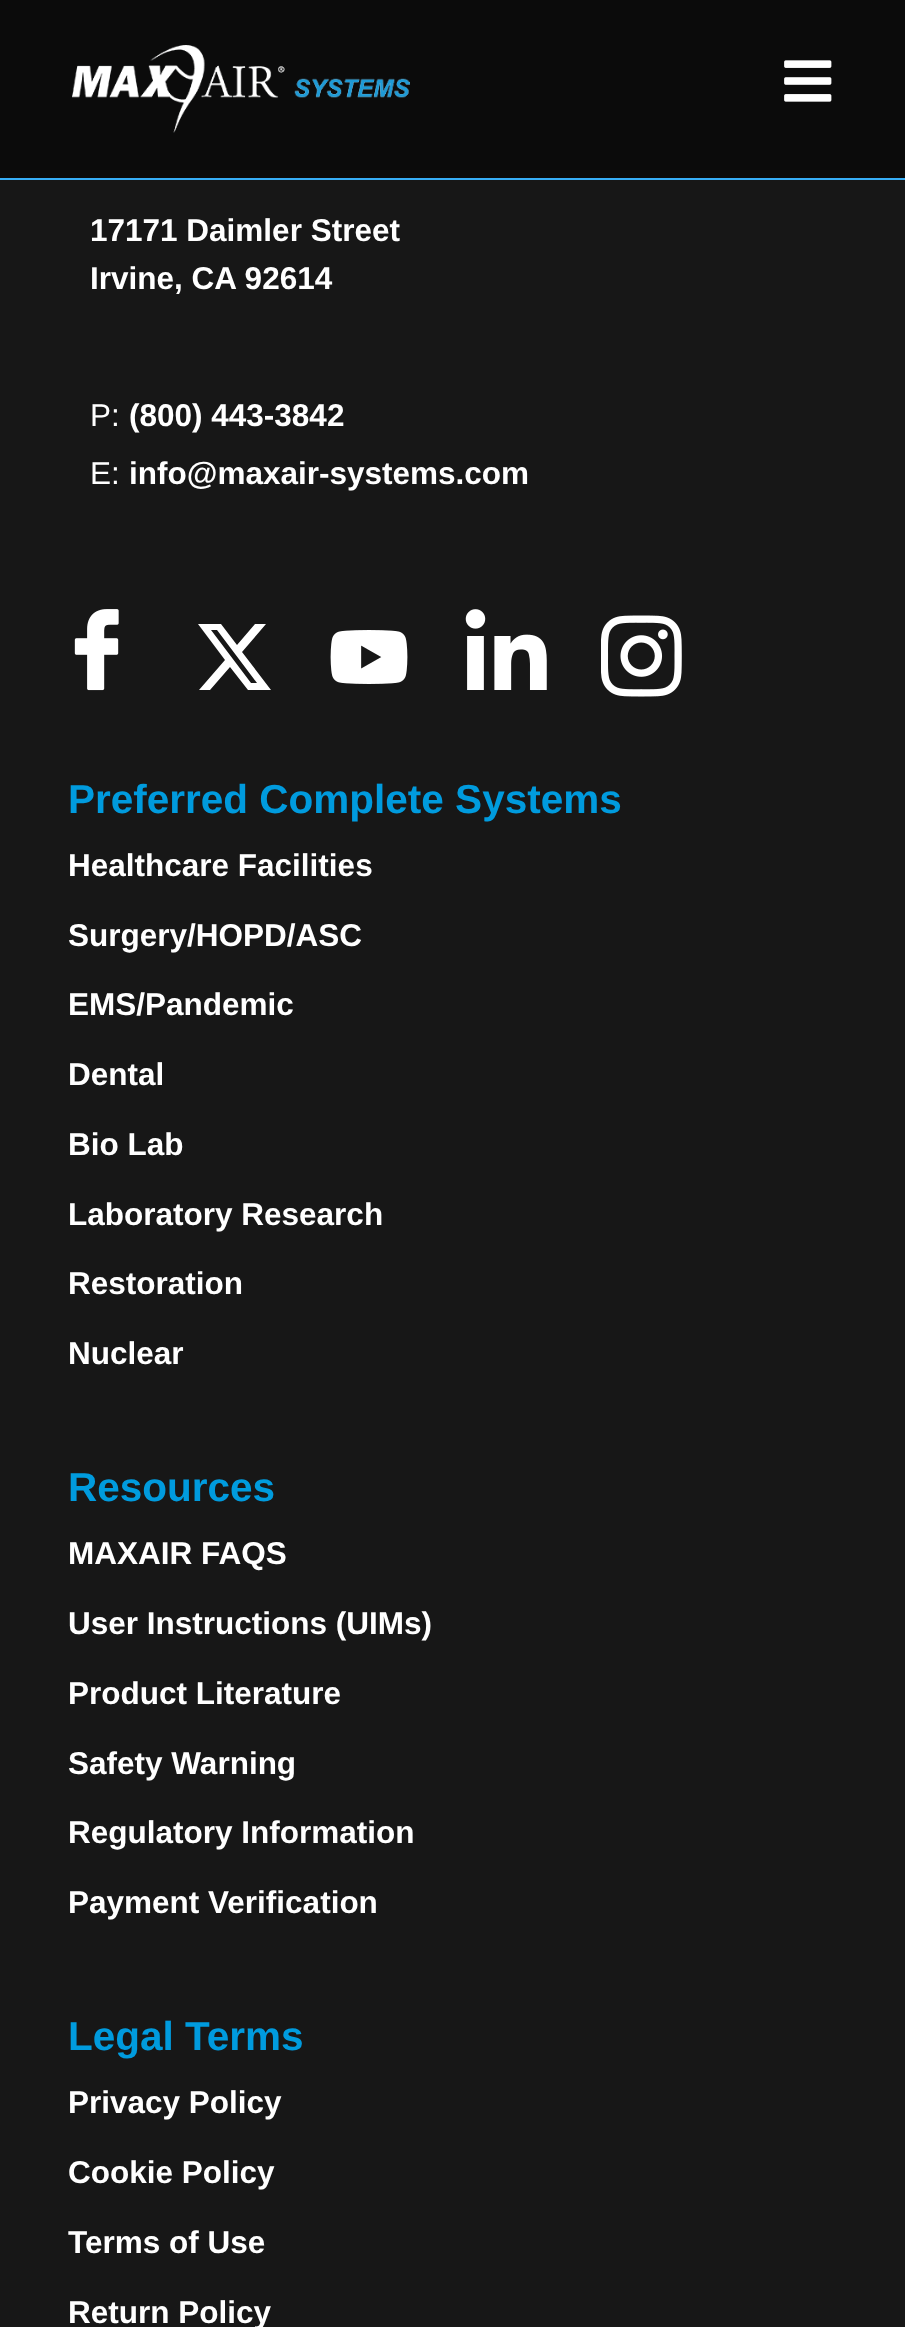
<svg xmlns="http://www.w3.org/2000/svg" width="905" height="2327">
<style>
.a{font:bold 31.5px Liberation Sans;fill:#fff}
.b{font:31.5px Liberation Sans;fill:#fff}
.c{font:bold 40.5px Liberation Sans;fill:#009bde}
</style>
<rect width="100%" height="100%" fill="#171717"/>
<path fill="#0b0b0b" d="M0 0h905v178H0z"/>
<path fill="#37aef6" d="M0 178h905v2H0z"/>
<image href="1.png" x="72" y="45" width="338" height="88"/>
<image href="2.png" x="784" y="60" width="48" height="42"/>
<image href="3.png" x="74" y="609" width="45" height="82"/>
<path fill="#fff" d="M255 624h11l-24 28l29 38h-23l-18-23l-20 23h-11l26-30l-27-36h23l16 21zm-4 59h6l-40-53h-6z"/>
<image href="4.png" x="330" y="630" width="78" height="54"/>
<image href="5.png" x="465" y="609" width="82" height="81"/>
<image href="6.png" x="601" y="615" width="81" height="82"/>
<text class="a" x="90" y="241">17171 Daimler Street</text>
<text class="a" x="90" y="289">Irvine, CA 92614</text>
<text class="b" x="90" y="426">P:</text>
<text class="a" x="129" y="426">(800) 443-3842</text>
<text class="b" x="90" y="484">E:</text>
<text class="a" x="129" y="484">info@maxair-systems.com</text>
<text class="c" x="68" y="813">Preferred Complete Systems</text>
<text class="a" x="68" y="876">Healthcare Facilities</text>
<text class="a" x="68" y="946">Surgery/HOPD/ASC</text>
<text class="a" x="68" y="1015">EMS/Pandemic</text>
<text class="a" x="68" y="1085">Dental</text>
<text class="a" x="68" y="1155">Bio Lab</text>
<text class="a" x="68" y="1225">Laboratory Research</text>
<text class="a" x="68" y="1294">Restoration</text>
<text class="a" x="68" y="1364">Nuclear</text>
<text class="c" x="68" y="1501">Resources</text>
<text class="a" x="68" y="1564">MAXAIR FAQS</text>
<text class="a" x="68" y="1634">User Instructions (UIMs)</text>
<text class="a" x="68" y="1704">Product Literature</text>
<text class="a" x="68" y="1774">Safety Warning</text>
<text class="a" x="68" y="1843">Regulatory Information</text>
<text class="a" x="68" y="1913">Payment Verification</text>
<text class="c" x="68" y="2050">Legal Terms</text>
<text class="a" x="68" y="2113">Privacy Policy</text>
<text class="a" x="68" y="2183">Cookie Policy</text>
<text class="a" x="68" y="2253">Terms of Use</text>
<text class="a" x="68" y="2323">Return Policy</text>
</svg>
